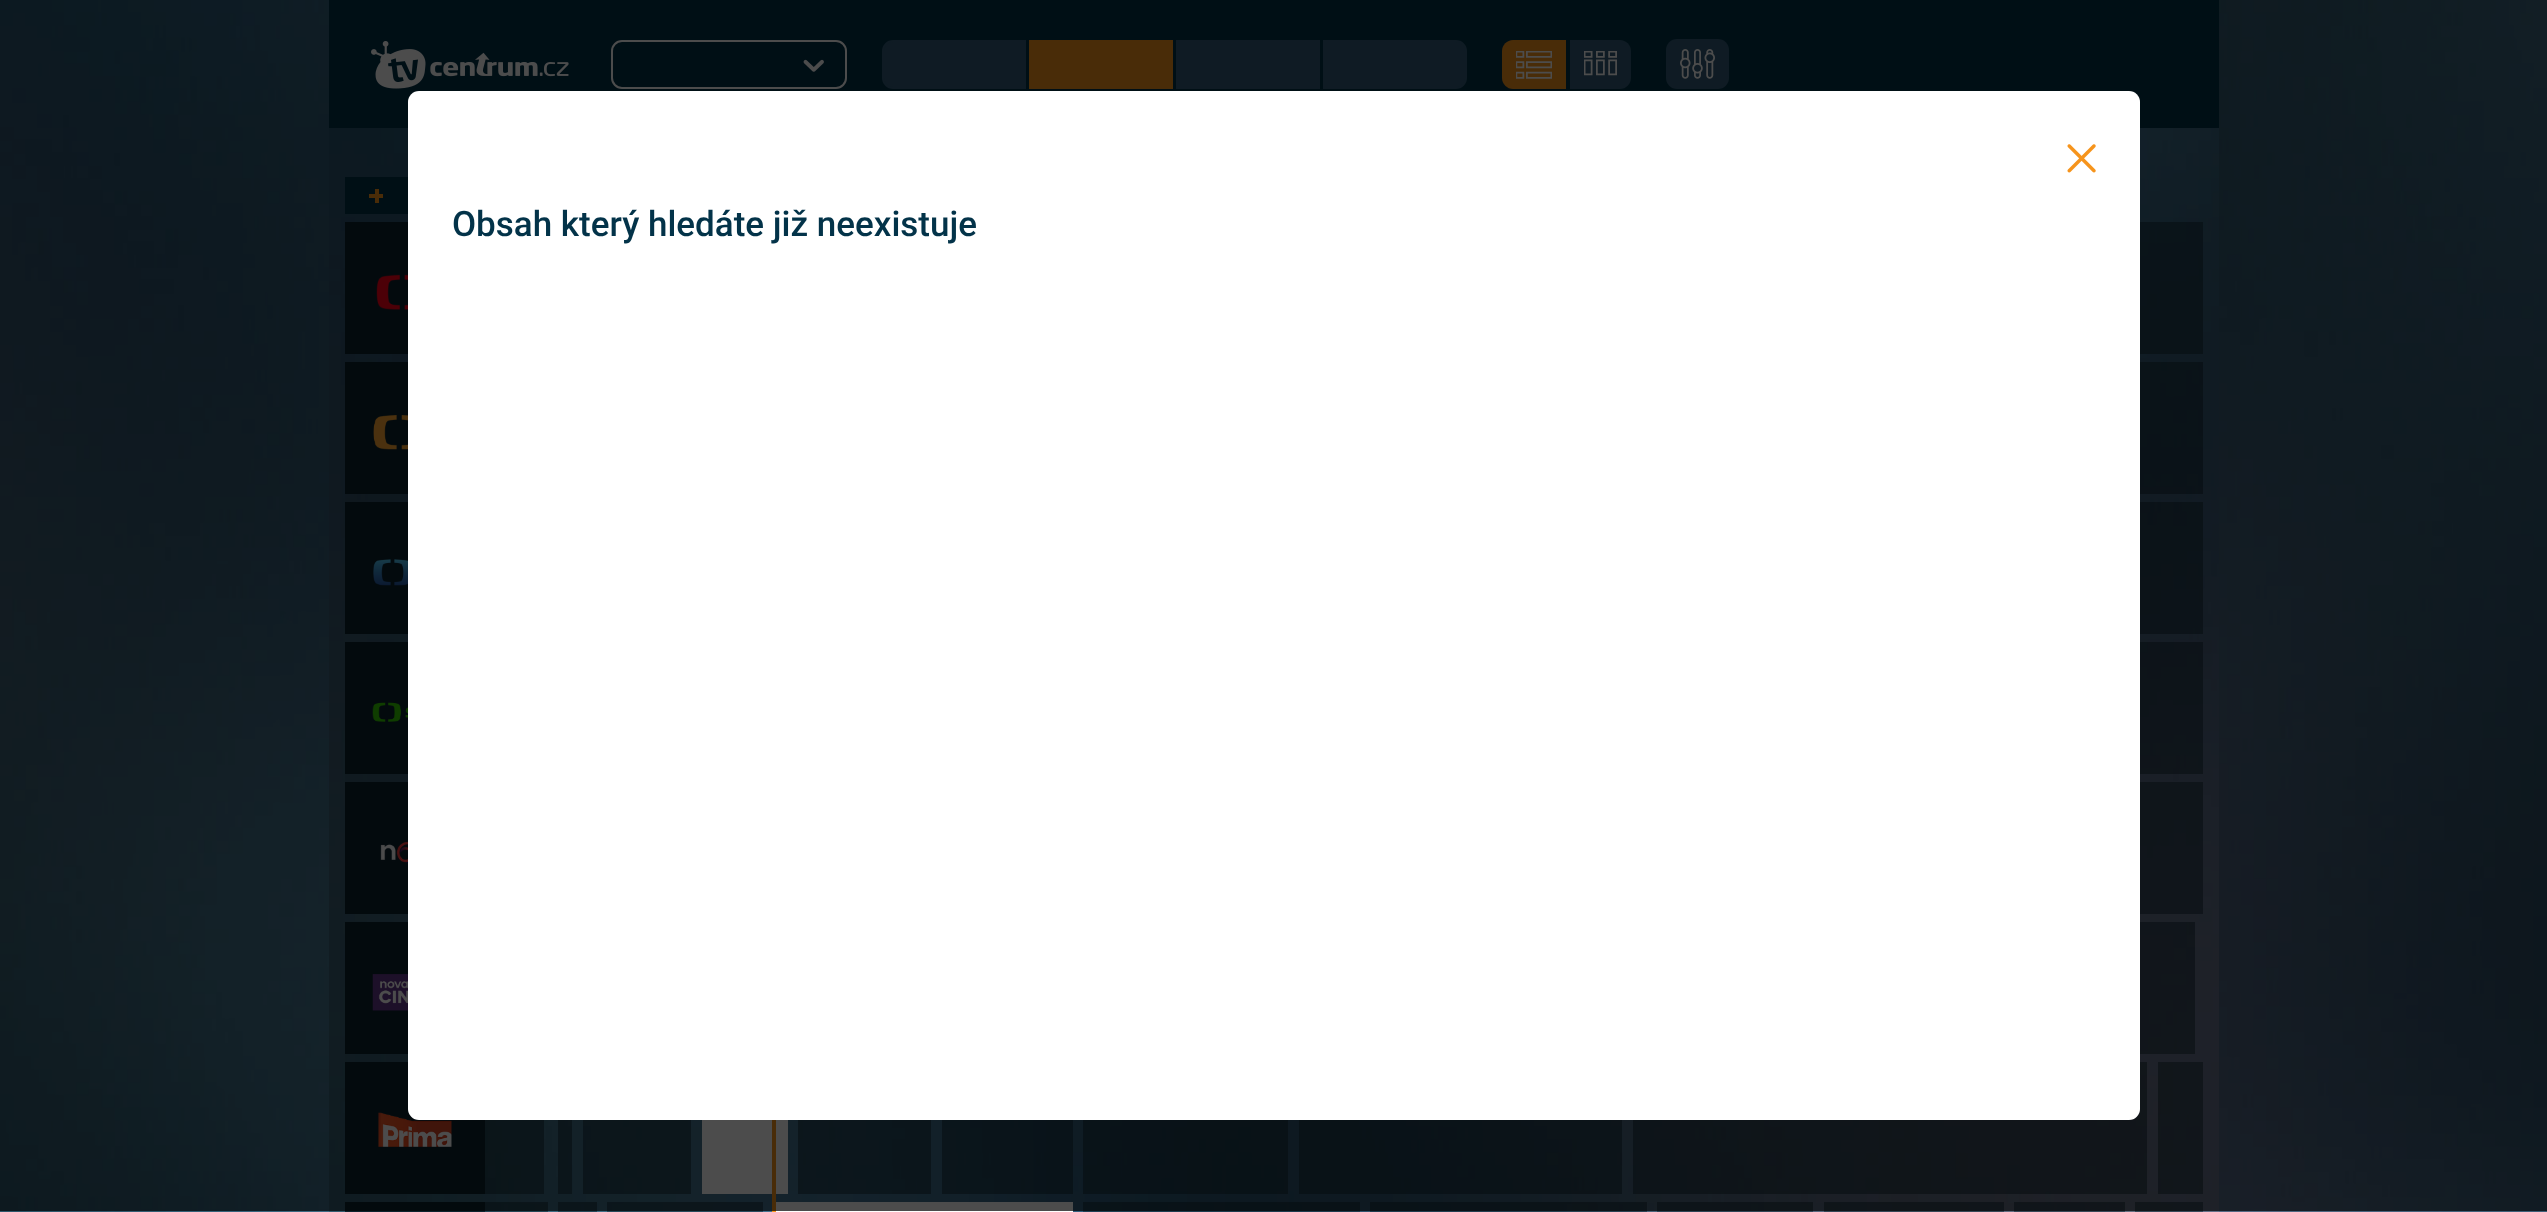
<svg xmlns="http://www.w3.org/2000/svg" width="2547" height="1212">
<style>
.a{font:500 35px Roboto;fill:#033349}
</style>
<rect width="100%" height="100%" fill="#fff"/>
<image href="1.png" x="0" y="0" width="2547" height="1212"/>
<path fill="#033349" d="M329 0h1890v128H329z"/>
<image href="2.png" x="371" y="41" width="198" height="48"/>
<rect fill="none" stroke="#fff" stroke-width="2" x="612" y="41" width="234" height="47" rx="10"/>
<image href="3.png" x="803" y="59" width="21" height="13"/>
<path fill="#325d78" stroke="#325d78" stroke-width="2" d="M893 41h132v47h-132c-5.5 0-10-4.5-10-10v-27c0-5.5 4.5-10 10-10z"/>
<path fill="#f6941c" d="M1029 40h144v49H1029z"/>
<path fill="#325d78" d="M1176 40h144v49H1176z"/>
<path fill="#325d78" stroke="#325d78" stroke-width="2" d="M1324 41h132c5.5 0 10 4.5 10 10v27c0 5.5-4.5 10-10 10h-132z"/>
<path fill="#f6941c" d="M1513 40h53v49h-53c-6 0-11-5-11-11v-27c0-6 5-11 11-11z"/>
<image href="4.png" x="1516" y="51" width="36" height="28"/>
<path fill="#325d78" d="M1570 40h50c6 0 11 5 11 11v27c0 6-5 11-11 11h-50z"/>
<image href="5.png" x="1584" y="51" width="33" height="25"/>
<rect fill="#325d78" x="1666" y="39" width="63" height="50" rx="11"/>
<image href="6.png" x="1680" y="49" width="35" height="30"/>
<image href="7.png" x="329" y="128" width="1890" height="1084"/>
<path fill="#033349" d="M345 177h63v37H345z"/>
<path fill="#f6941c" d="M375 189h4v14H375z"/>
<path fill="#f6941c" d="M369 194h14v4H369z"/>
<path fill="#0d232e" d="M345 222h63v132H345z"/>
<image href="8.png" x="376" y="274" width="32" height="36"/>
<path fill="#0000000d" d="M345 494h63v8H345z"/>
<path fill="#0d232e" d="M345 362h63v132H345z"/>
<image href="9.png" x="373" y="415" width="35" height="35"/>
<path fill="#0d232e" d="M345 502h63v132H345z"/>
<image href="10.png" x="373" y="559" width="35" height="27"/>
<path fill="#0000000d" d="M345 774h63v8H345z"/>
<path fill="#0d232e" d="M345 642h63v132H345z"/>
<image href="11.png" x="372" y="702" width="36" height="20"/>
<path fill="#0d232e" d="M345 782h63v132H345z"/>
<image href="12.png" x="380" y="841" width="28" height="23"/>
<path fill="#0000000d" d="M345 1054h63v8H345z"/>
<path fill="#0d232e" d="M345 922h63v132H345z"/>
<image href="13.png" x="372" y="974" width="36" height="37"/>
<path fill="#0d232e" d="M345 1062h140v132H345z"/>
<image href="14.png" x="378" y="1112" width="74" height="35"/>
<path fill="#0d232e" d="M345 1202h140v10H345z"/>
<path fill="#0d232e80" d="M2140 222h63v132H2140z"/>
<path fill="#0d232e80" d="M2140 362h63v132H2140z"/>
<path fill="#0d232e80" d="M2140 502h63v132H2140z"/>
<path fill="#0d232e80" d="M2140 642h63v132H2140z"/>
<path fill="#0d232e80" d="M2140 782h63v132H2140z"/>
<path fill="#0d232e80" d="M2140 922h55v132H2140z"/>
<path fill="#0d232e80" d="M485 1120h59v74H485z"/>
<path fill="#0d232e80" d="M558 1120h14v74H558z"/>
<path fill="#0d232e80" d="M583 1120h108v74H583z"/>
<path fill="#fff" d="M702 1120h86v74H702z"/>
<path fill="#0d232e80" d="M798 1120h133v74H798z"/>
<path fill="#0d232e80" d="M942 1120h131v74H942z"/>
<path fill="#0d232e80" d="M1083 1120h205v74H1083z"/>
<path fill="#0d232e80" d="M1299 1120h323v74H1299z"/>
<path fill="#0d232e80" d="M1633 1062h514v132H1633z"/>
<path fill="#0d232e80" d="M2158 1062h45v132H2158z"/>
<path fill="#0d232e80" d="M485 1202h63v10H485z"/>
<path fill="#0d232e80" d="M558 1202h39v10H558z"/>
<path fill="#0d232e80" d="M607 1202h156v10H607z"/>
<path fill="#fff" d="M776 1202h297v10H776z"/>
<path fill="#0d232e80" d="M1083 1202h277v10H1083z"/>
<path fill="#0d232e80" d="M1370 1202h277v10H1370z"/>
<path fill="#0d232e80" d="M1657 1202h156v10H1657z"/>
<path fill="#0d232e80" d="M1824 1202h180v10H1824z"/>
<path fill="#0d232e80" d="M2014 1202h111v10H2014z"/>
<path fill="#0d232e80" d="M2135 1202h68v10H2135z"/>
<path fill="#f6941c" d="M772 1120h4v92H772z"/>
<path fill="#000000b3" d="M0 0h2547v1211H0z"/>
<rect fill="#fff" x="408" y="91" width="1732" height="1029" rx="11"/>
<image href="15.png" x="2067" y="144" width="29" height="29"/>
<text class="a" x="452" y="236">Obsah který hledáte již neexistuje</text>
</svg>
